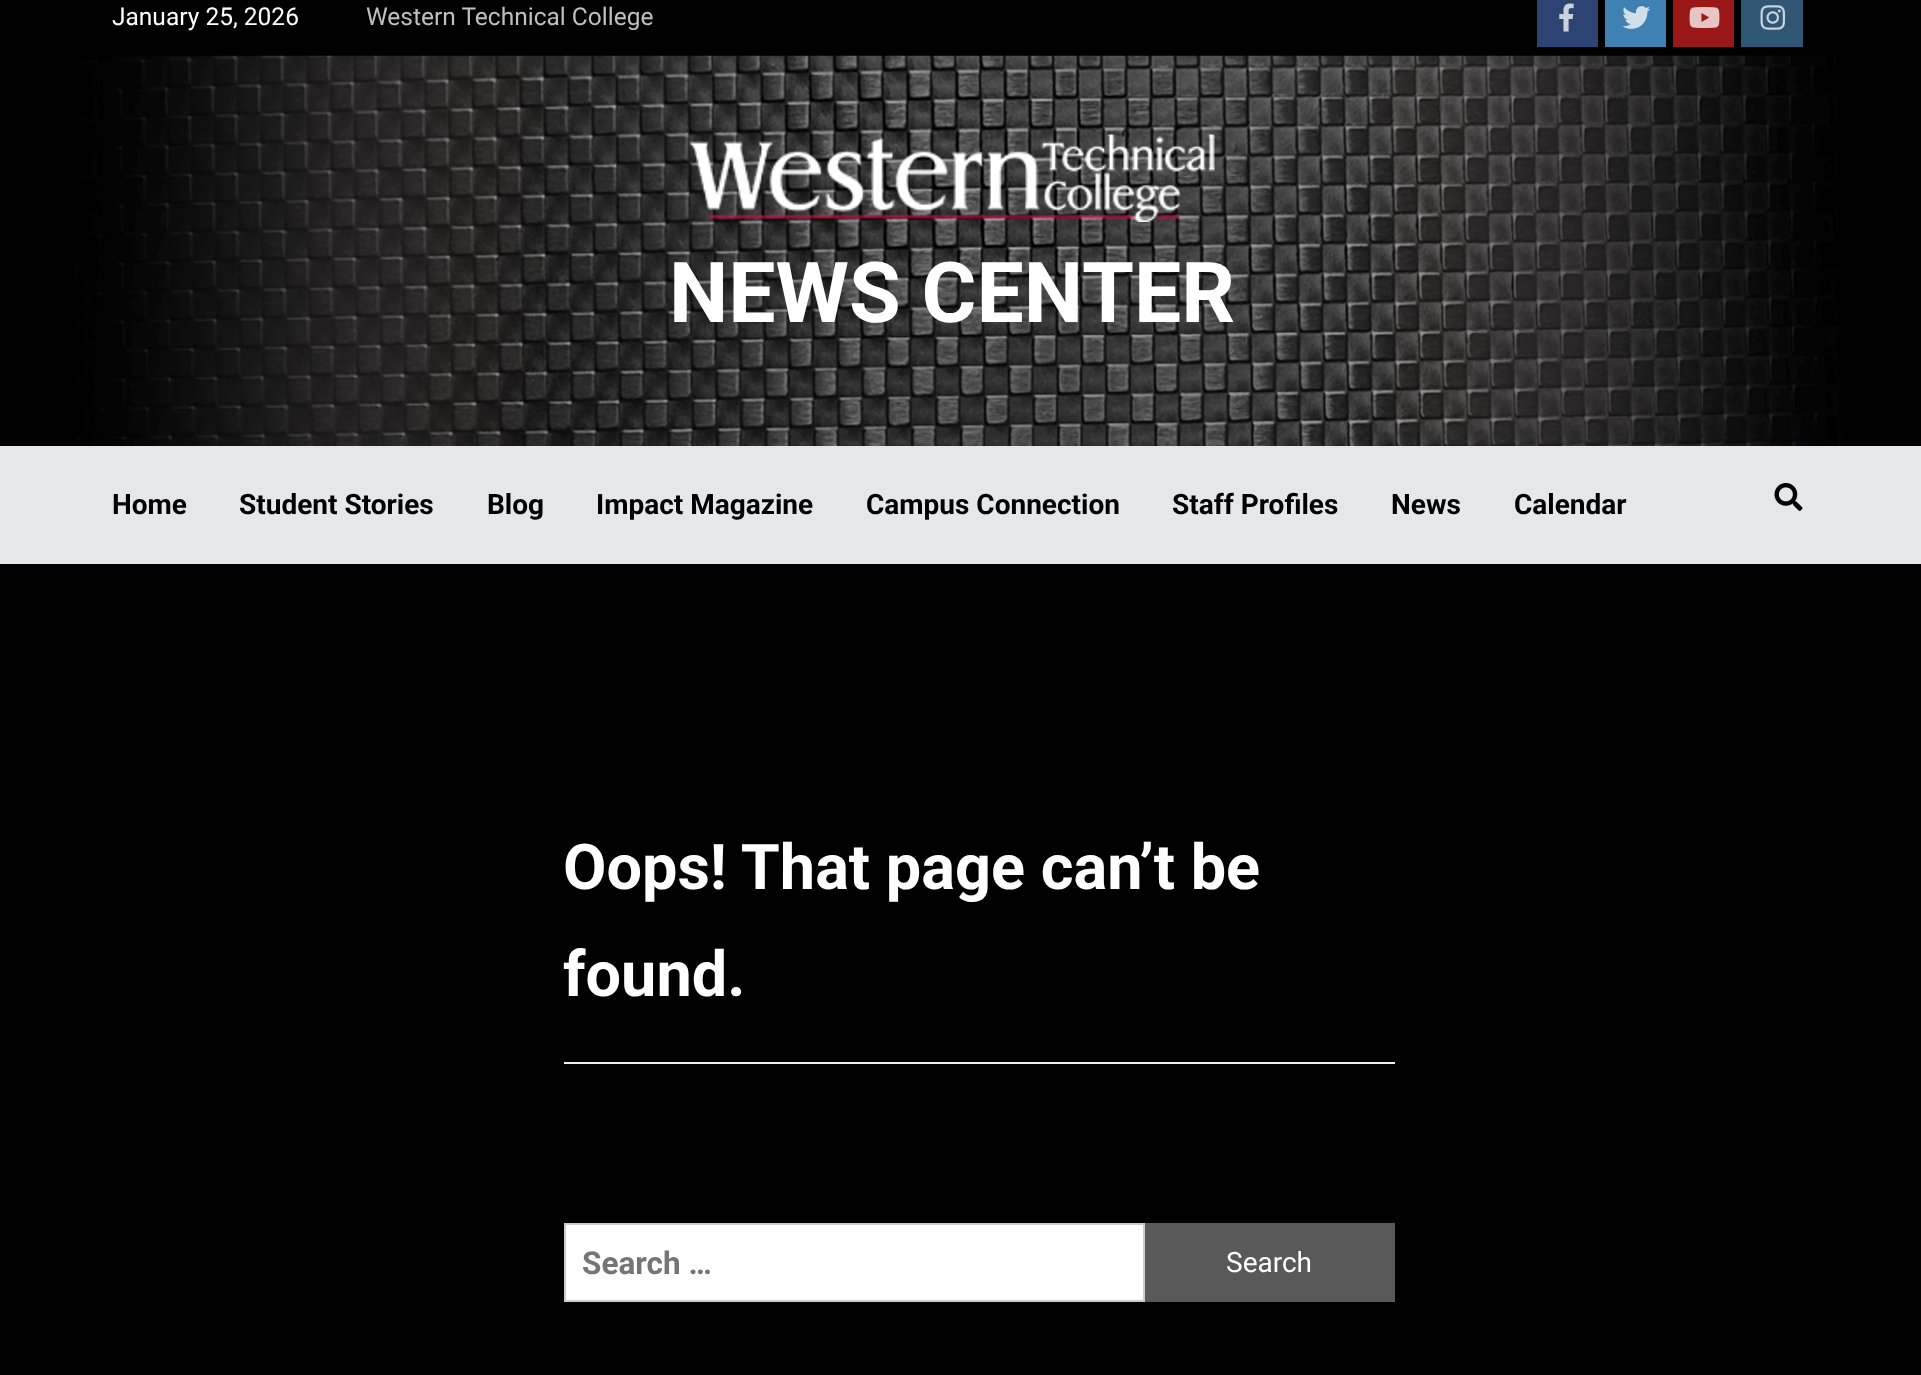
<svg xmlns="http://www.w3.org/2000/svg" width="1921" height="1375">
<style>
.a{font:24.5px Roboto;fill:#fff}
.b{font:24.5px Roboto;fill:#bfbfbf}
.c{font:bold 84px Roboto;fill:#fff}
.d{font:bold 28px Roboto;fill:#000}
.e{font:bold 63px Roboto;fill:#fff}
.f{font:bold 31.5px Roboto;fill:#757575}
.g{font:28px Roboto;fill:#fff}
</style>
<rect width="100%" height="100%" fill="#000"/>
<path fill="#2c4373" d="M1537 0h61v47H1537z"/>
<image href="1.png" x="1559" y="3" width="15" height="29"/>
<path fill="#4081b3" d="M1605 0h61v47H1605z"/>
<image href="2.png" x="1622" y="6" width="28" height="23"/>
<path fill="#9a1817" d="M1673 0h61v47H1673z"/>
<image href="3.png" x="1689" y="7" width="31" height="21"/>
<path fill="#2f5674" d="M1741 0h62v47H1741z"/>
<image href="4.png" x="1760" y="5" width="25" height="25"/>
<image href="5.png" x="74" y="55" width="1767" height="391"/>
<image href="6.png" x="689" y="134" width="526" height="88"/>
<path fill="#e5e7eb" d="M0 446h1921v118H0z"/>
<image href="7.png" x="1774" y="483" width="29" height="28"/>
<path fill="#eee" d="M564 1062h831v2H564z"/>
<path fill="#fff" stroke="#ccc" stroke-width="2" d="M565 1224h579v77H565z"/>
<path fill="#595959" d="M1145 1223h250v79H1145z"/>
<text class="a" x="112" y="25">January 25, 2026</text>
<text class="b" x="366" y="25">Western Technical College</text>
<text class="c" x="669" y="322">NEWS CENTER</text>
<text class="d" x="112" y="514">Home</text>
<text class="d" x="239" y="514">Student Stories</text>
<text class="d" x="487" y="514">Blog</text>
<text class="d" x="596" y="514">Impact Magazine</text>
<text class="d" x="866" y="514">Campus Connection</text>
<text class="d" x="1172" y="514">Staff Profiles</text>
<text class="d" x="1391" y="514">News</text>
<text class="d" x="1514" y="514">Calendar</text>
<text class="e" x="563" y="889">Oops! That page can’t be</text>
<text class="e" x="563" y="996">found.</text>
<text class="f" x="582" y="1274">Search …</text>
<text class="g" x="1226" y="1272">Search</text>
</svg>
